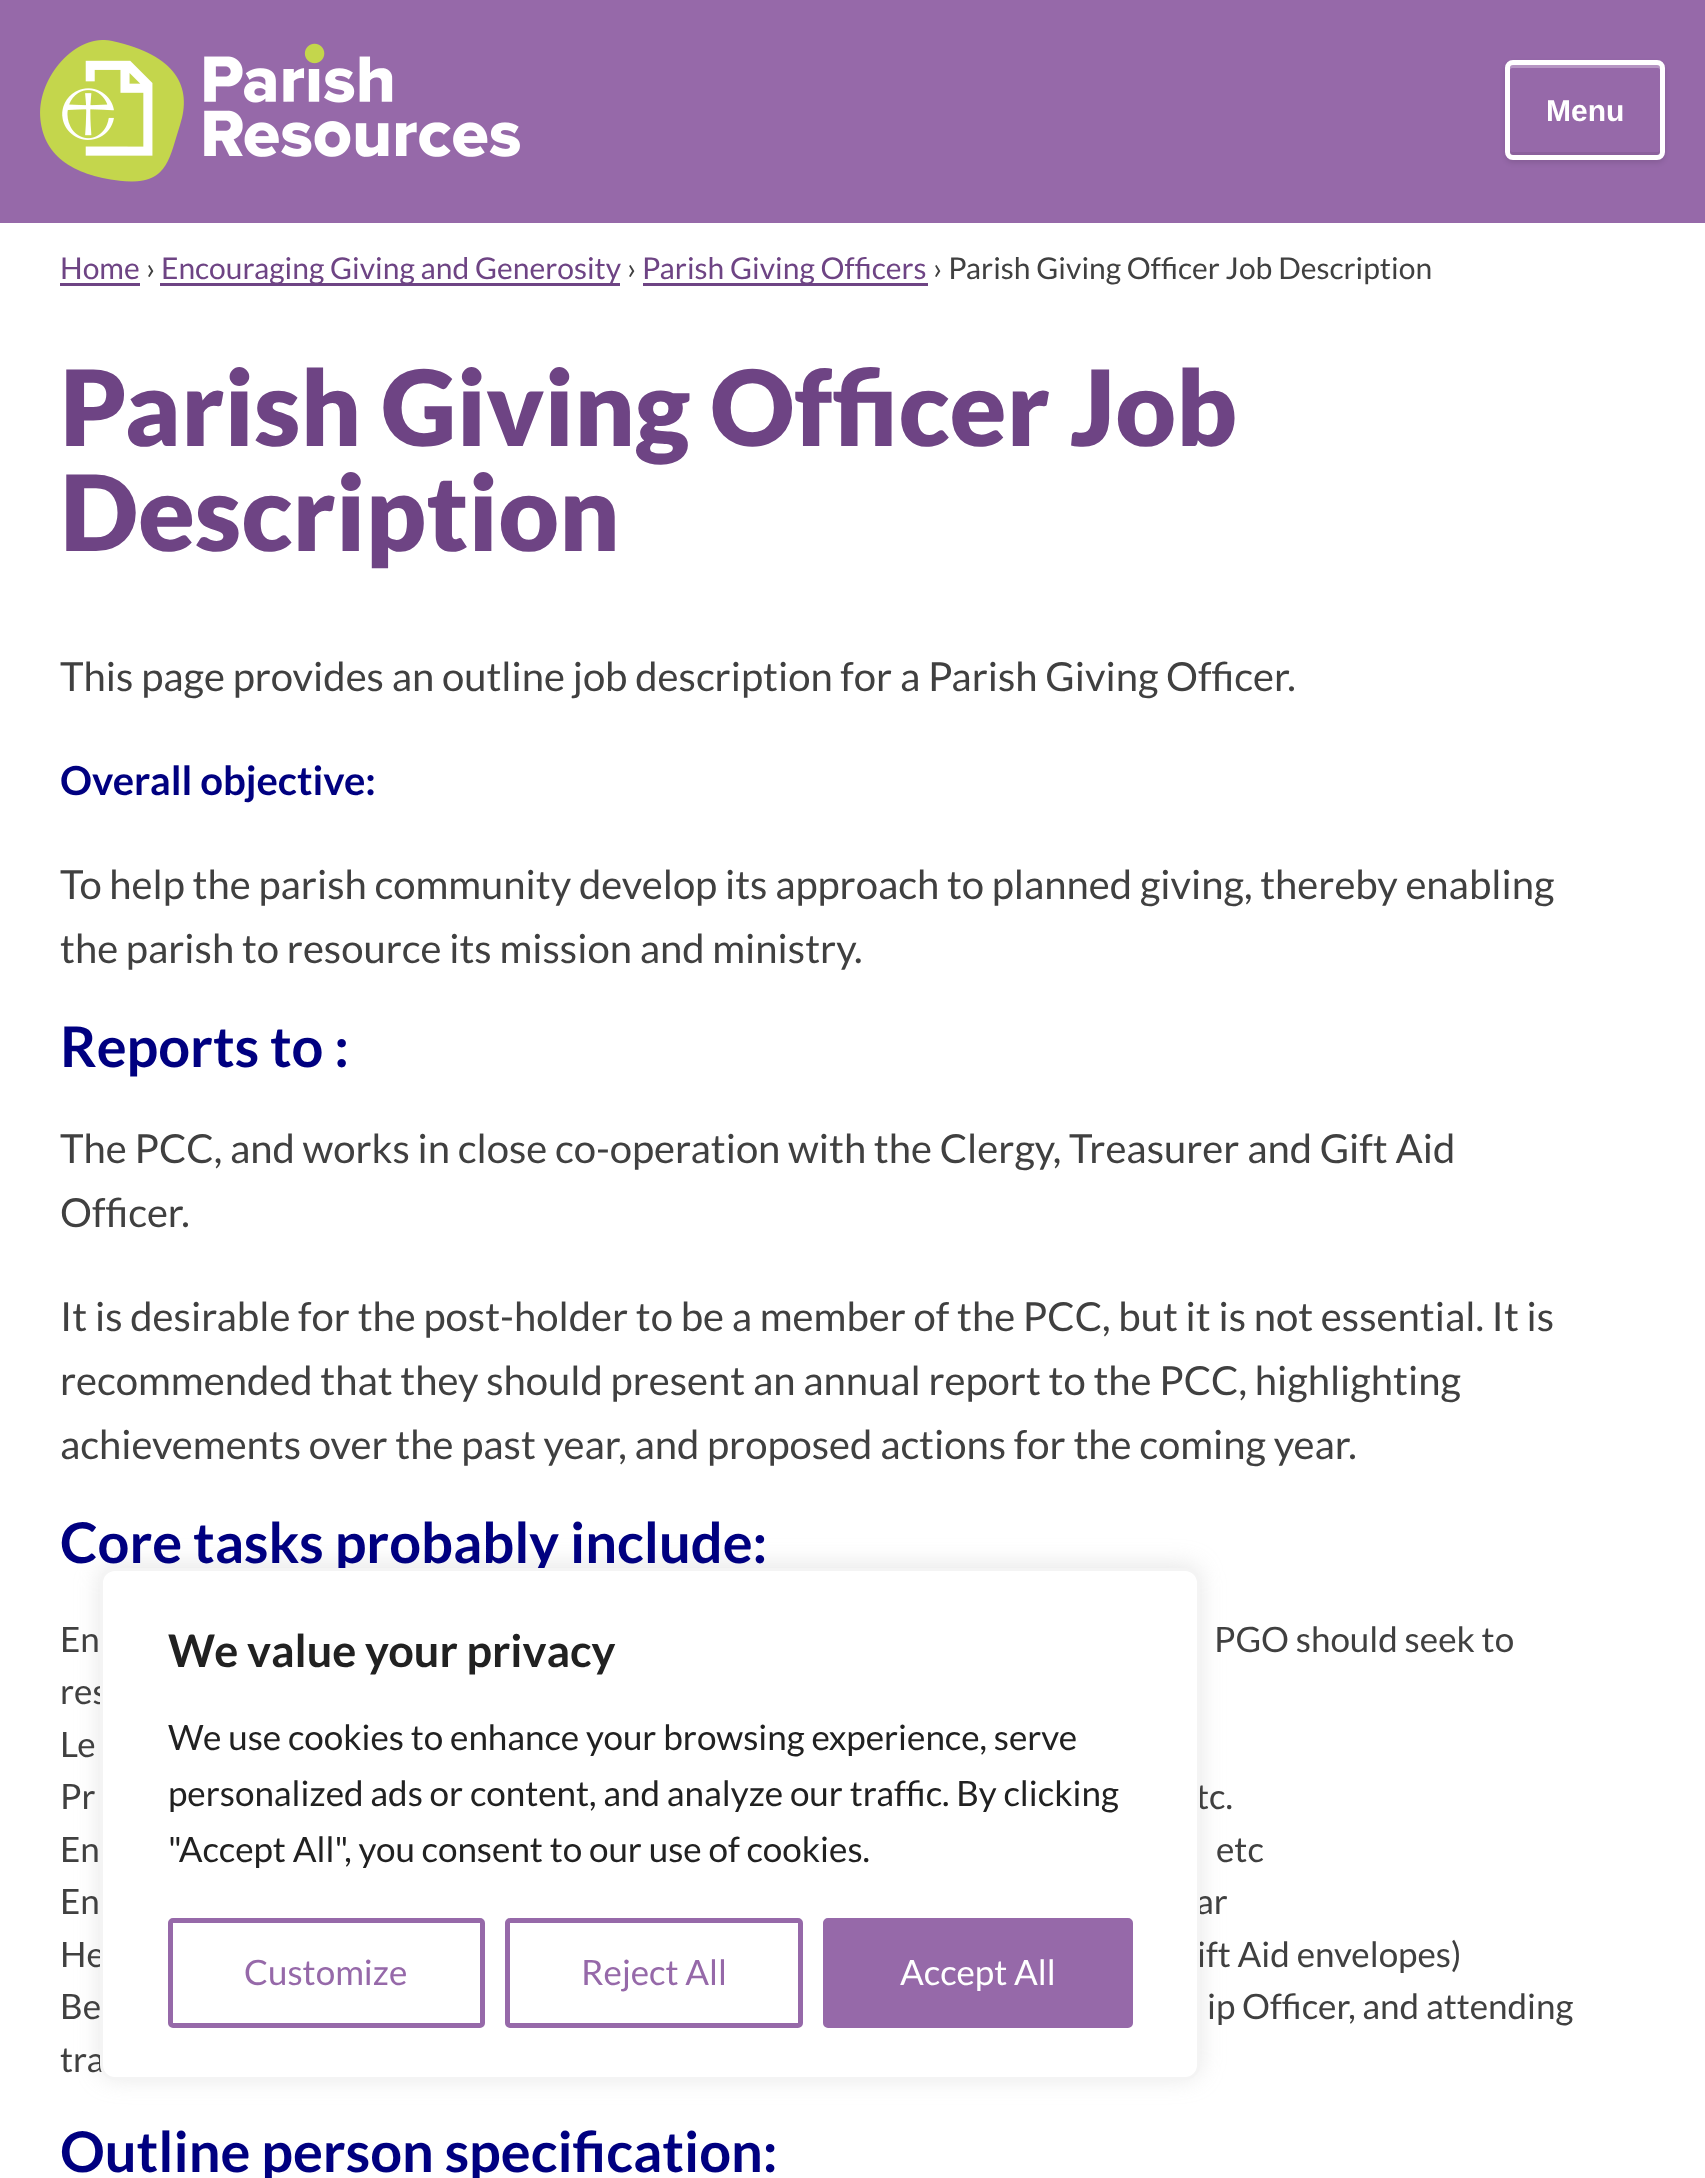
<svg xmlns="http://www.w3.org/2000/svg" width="1705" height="2178">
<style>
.a{font:bold 30px Liberation Sans;fill:#fff}
.b{font:30px Lato;fill:#6e4484}
.c{font:30px Lato;fill:#404040}
.d{font:900 105px Lato;fill:#6e4484}
.e{font:40px Lato;fill:#404040}
.f{font:bold 40px Lato;fill:#000080}
.g{font:bold 56px Lato;fill:#000080}
.h{font:35px Lato;fill:#404040}
.i{font:bold 45px Lato;fill:#212121}
.j{font:35px Lato;fill:#212121}
.k{font:35px Lato;fill:#9669a9}
.l{font:35px Lato;fill:#fff}
</style>
<defs>
<clipPath id="clip1"><path d="M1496 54h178v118h-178zm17 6h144c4.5 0 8 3.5 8 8v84c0 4.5-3.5 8-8 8h-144c-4.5 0-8-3.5-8-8v-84c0-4.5 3.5-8 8-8z" clip-rule="evenodd"/></clipPath>
</defs>
<rect width="100%" height="100%" fill="#fff"/>
<path fill="#9669a9" d="M0 0h1705v223H0z"/>
<image href="1.png" x="40" y="40" width="480" height="142"/>
<g clip-path="url(#clip1)">
<rect fill="#0000001a" filter="blur(2.5px)" x="1505" y="63" width="160" height="100" rx="8"/>
</g>
<path fill="#b696c3" d="M1512 68h146c1 0 2 1 2 2v-2c0-2-1-3-2-3h-146c-1 0-2 1-2 3v2c0-1 1-2 2-2z"/>
<path fill="#8b619c" d="M1510 150v2c0 2 1 3 2 3h146c1 0 2-1 2-3v-2c0 1-1 2-2 2h-146c-1 0-2-1-2-2z"/>
<rect fill="none" stroke="#fff" stroke-width="5" x="1507.5" y="62.5" width="155" height="95" rx="5.5"/>
<path fill="#6e4484" d="M60 283h80v3H60z"/>
<path fill="#6e4484" d="M160 283h460v3H160z"/>
<path fill="#6e4484" d="M643 283h285v3H643z"/>
<rect fill="#acabab4d" filter="blur(12.5px)" x="100" y="1565" width="1100" height="513" rx="15"/>
<text class="a" x="1546" y="121">Menu</text>
<text class="b" x="60" y="279">Home</text>
<text class="c" x="146" y="279">›</text>
<text class="b" x="161" y="279">Encouraging Giving and Generosity</text>
<text class="c" x="627" y="279">›</text>
<text class="b" x="642" y="279">Parish Giving Officers</text>
<text class="c" x="933" y="279">› Parish Giving Officer Job Description</text>
<text class="d" x="60" y="446">Parish Giving Officer Job</text>
<text class="d" x="60" y="551">Description</text>
<text class="e" x="60" y="691">This page provides an outline job description for a Parish Giving Officer.</text>
<text class="f" x="60" y="795">Overall objective:</text>
<text class="e" x="60" y="899">To help the parish community develop its approach to planned giving, thereby enabling</text>
<text class="e" x="60" y="963">the parish to resource its mission and ministry.</text>
<text class="g" x="60" y="1067">Reports to :</text>
<text class="e" x="60" y="1163">The PCC, and works in close co-operation with the Clergy, Treasurer and Gift Aid</text>
<text class="e" x="60" y="1227">Officer.</text>
<text class="e" x="60" y="1331">It is desirable for the post-holder to be a member of the PCC, but it is not essential. It is</text>
<text class="e" x="60" y="1395">recommended that they should present an annual report to the PCC, highlighting</text>
<text class="e" x="60" y="1459">achievements over the past year, and proposed actions for the coming year.</text>
<text class="g" x="60" y="1563">Core tasks probably include:</text>
<text class="h" x="60" y="1652">En</text>
<text class="h" x="1214" y="1652">PGO should seek to</text>
<text class="h" x="60" y="1704">res</text>
<text class="h" x="60" y="1757">Le</text>
<text class="h" x="60" y="1809">Pr</text>
<text class="h" x="1196" y="1809">tc.</text>
<text class="h" x="60" y="1862">En</text>
<text class="h" x="1216" y="1862">etc</text>
<text class="h" x="60" y="1914">En</text>
<text class="h" x="1196" y="1914">ar</text>
<text class="h" x="60" y="1967">He</text>
<text class="h" x="1197" y="1967">ift Aid envelopes)</text>
<text class="h" x="60" y="2019">Be</text>
<text class="h" x="1207" y="2019">ip Officer, and attending</text>
<text class="h" x="60" y="2072">tra</text>
<text class="g" x="60" y="2172">Outline person specification:</text>
<rect fill="#fff" stroke="#f4f4f4" stroke-width="3" x="101.5" y="1569.5" width="1097" height="509" rx="13.5"/>
<text class="i" x="168" y="1667">We value your privacy</text>
<text class="j" x="168" y="1750">We use cookies to enhance your browsing experience, serve</text>
<text class="j" x="168" y="1806">personalized ads or content, and analyze our traffic. By clicking</text>
<text class="j" x="168" y="1862">"Accept All", you consent to our use of cookies.</text>
<rect fill="none" stroke="#9669a9" stroke-width="5" x="170.5" y="1920.5" width="312" height="105" rx="2.5"/>
<text class="k" x="244" y="1985">Customize</text>
<rect fill="none" stroke="#9669a9" stroke-width="5" x="507.5" y="1920.5" width="293" height="105" rx="2.5"/>
<text class="k" x="581" y="1985">Reject All</text>
<rect fill="#9669a9" stroke="#9669a9" stroke-width="5" x="825.5" y="1920.5" width="305" height="105" rx="2.5"/>
<text class="l" x="900" y="1985">Accept All</text>
</svg>
